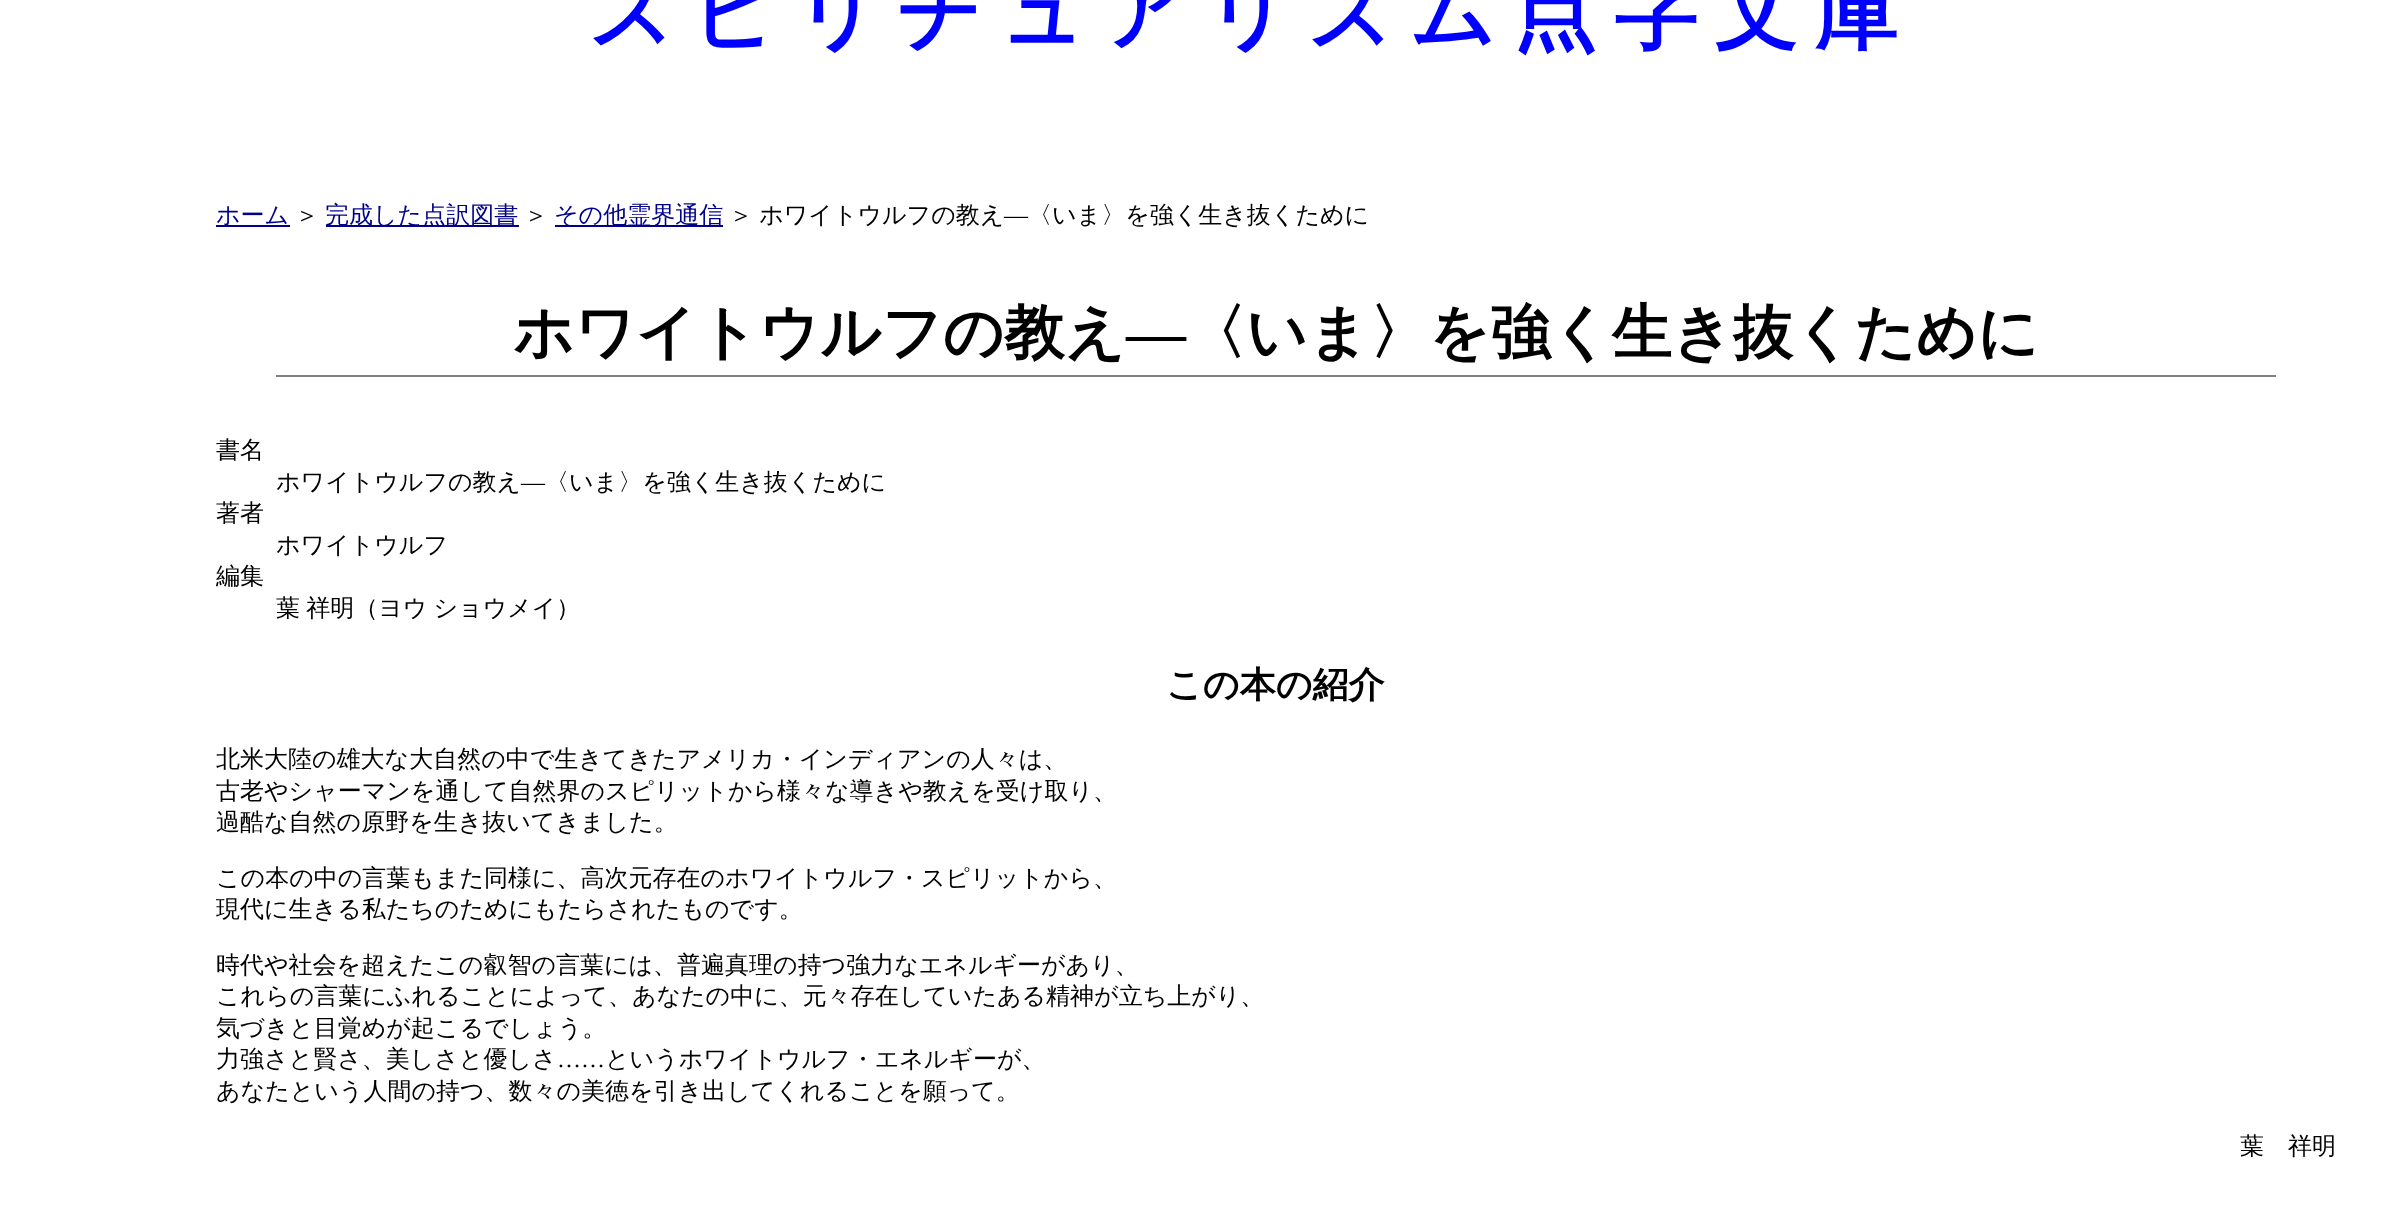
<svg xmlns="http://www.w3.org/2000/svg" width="2407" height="1205">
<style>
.a{font:bold 84px WenQuanYi Zen Hei;letter-spacing:16.75px;fill:#00f}
.b{font:500 24px WenQuanYi Zen Hei;fill:#00008b}
.c{font:500 24px WenQuanYi Zen Hei;fill:#000}
.d{font:24px Liberation Serif;fill:#000}
.e{font:bold 60px WenQuanYi Zen Hei;fill:#000}
.f{font:bold 60px Liberation Serif;fill:#000}
.g{font:bold 36px WenQuanYi Zen Hei;fill:#000}
</style>
<rect width="100%" height="100%" fill="#fff"/>
<path fill="#00008b" d="M216 225h74v2H216z"/>
<path fill="#00008b" d="M326 225h193v2H326z"/>
<path fill="#00008b" d="M555 225h168v2H555z"/>
<path fill="#808080" d="M276 375h2000v2H276z"/>
<text class="a" x="588" y="41">スピリチュアリズム点字文庫</text>
<text class="b" x="216" y="223">ホーム</text>
<text class="c" x="295" y="223">＞</text>
<text class="b" x="325" y="223">完成した点訳図書</text>
<text class="c" x="524" y="223">＞</text>
<text class="b" x="554" y="223">その他霊界通信</text>
<text class="c" x="729" y="223" word-spacing="-1">＞ ホワイトウルフの教え</text>
<text class="d" x="1004" y="223">―</text>
<text class="c" x="1028" y="223">〈いま〉を強く生き抜くために</text>
<text class="e" x="513" y="353">ホワイトウルフの教え</text>
<text class="f" x="1126" y="353">―</text>
<text class="e" x="1186" y="353">〈いま〉を強く生き抜くために</text>
<text class="c" x="216" y="458">書名</text>
<text class="c" x="276" y="490">ホワイトウルフの教え</text>
<text class="d" x="521" y="490">―</text>
<text class="c" x="545" y="490">〈いま〉を強く生き抜くために</text>
<text class="c" x="216" y="521">著者</text>
<text class="c" x="276" y="553">ホワイトウルフ</text>
<text class="c" x="216" y="584">編集</text>
<text class="c" x="276" y="616" word-spacing="-1">葉 祥明（ヨウ ショウメイ）</text>
<text class="g" x="1166" y="697">この本の紹介</text>
<text class="c" x="216" y="767">北米大陸の雄大な大自然の中で生きてきたアメリカ・インディアンの人々は、</text>
<text class="c" x="216" y="799">古老やシャーマンを通して自然界のスピリットから様々な導きや教えを受け取り、</text>
<text class="c" x="216" y="830">過酷な自然の原野を生き抜いてきました。</text>
<text class="c" x="216" y="886">この本の中の言葉もまた同様に、高次元存在のホワイトウルフ・スピリットから、</text>
<text class="c" x="216" y="917">現代に生きる私たちのためにもたらされたものです。</text>
<text class="c" x="216" y="973">時代や社会を超えたこの叡智の言葉には、普遍真理の持つ強力なエネルギーがあり、</text>
<text class="c" x="216" y="1004">これらの言葉にふれることによって、あなたの中に、元々存在していたある精神が立ち上がり、</text>
<text class="c" x="216" y="1036">気づきと目覚めが起こるでしょう。</text>
<text class="c" x="216" y="1067">力強さと賢さ、美しさと優しさ</text>
<text class="d" x="557" y="1067">……</text>
<text class="c" x="605" y="1067">というホワイトウルフ・エネルギーが、</text>
<text class="c" x="216" y="1099">あなたという人間の持つ、数々の美徳を引き出してくれることを願って。</text>
<text class="c" x="2240" y="1154">葉　祥明</text>
</svg>
